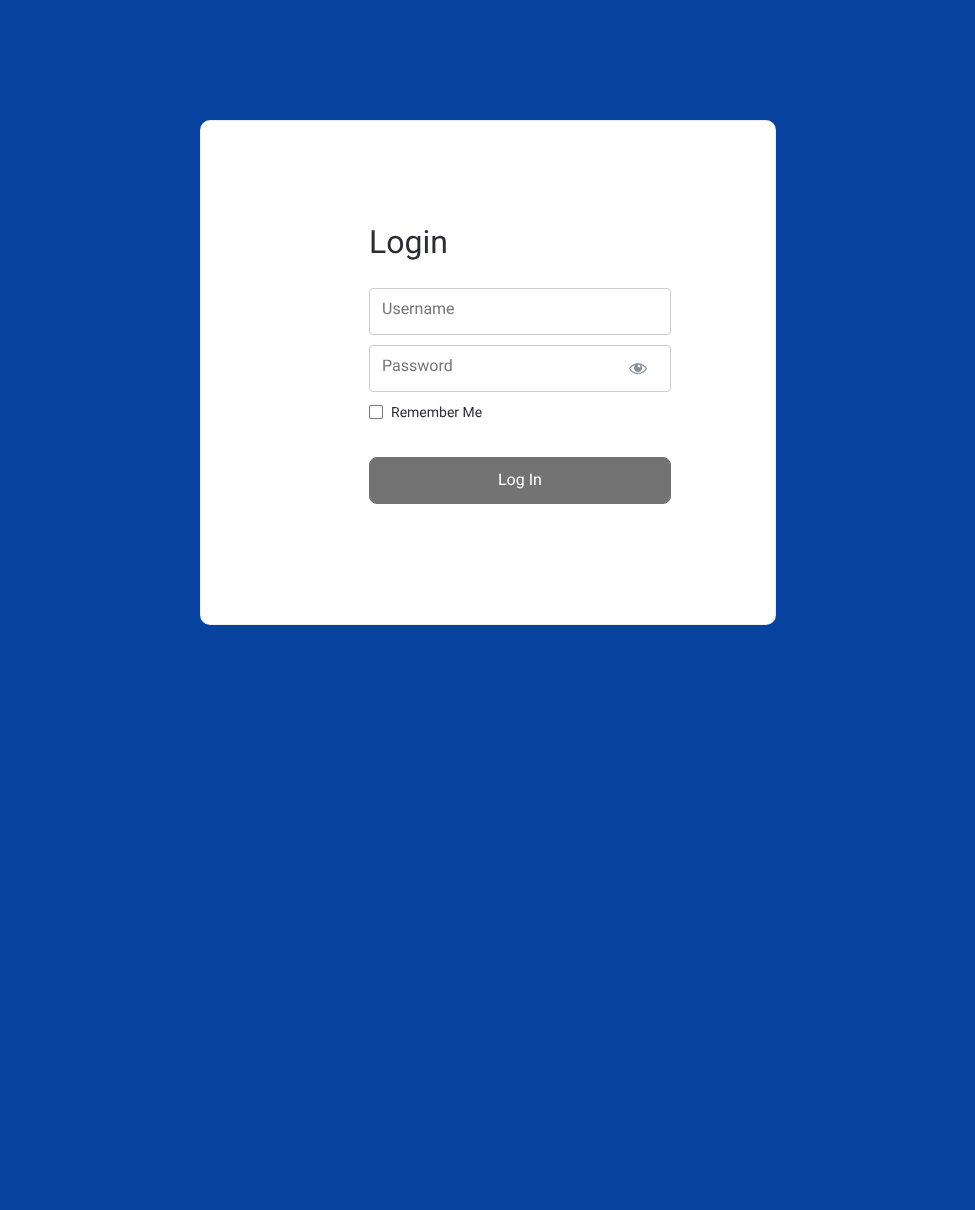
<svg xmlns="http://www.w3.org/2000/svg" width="975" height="1210">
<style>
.a{font:32px Roboto;fill:#2c2d36}
.b{font:16px Roboto;fill:#757575}
.c{font:14px Roboto;fill:#2c2d36}
.d{font:16px Roboto;fill:#fff}
</style>
<rect width="100%" height="100%" fill="#06429e"/>
<rect fill="#fff" x="200" y="120" width="576" height="505" rx="10"/>
<rect fill="none" stroke="#00000014" x="200.5" y="120.5" width="575" height="504" rx="9.5"/>
<rect fill="none" stroke="#ccc" x="369.5" y="288.5" width="301" height="46" rx="3.5"/>
<rect fill="none" stroke="#ccc" x="369.5" y="345.5" width="301" height="46" rx="3.5"/>
<image href="1.png" x="629" y="363" width="18" height="12"/>
<rect fill="none" stroke="#767676" x="369.5" y="405.5" width="13" height="13" rx="1.5"/>
<rect fill="#737373" stroke="#737373" x="369.5" y="457.5" width="301" height="46" rx="7.5"/>
<text class="a" x="369" y="253">Login</text>
<text class="b" x="382" y="314">Username</text>
<text class="b" x="382" y="371">Password</text>
<text class="c" x="391" y="417">Remember Me</text>
<text class="d" x="498" y="485">Log In</text>
</svg>
